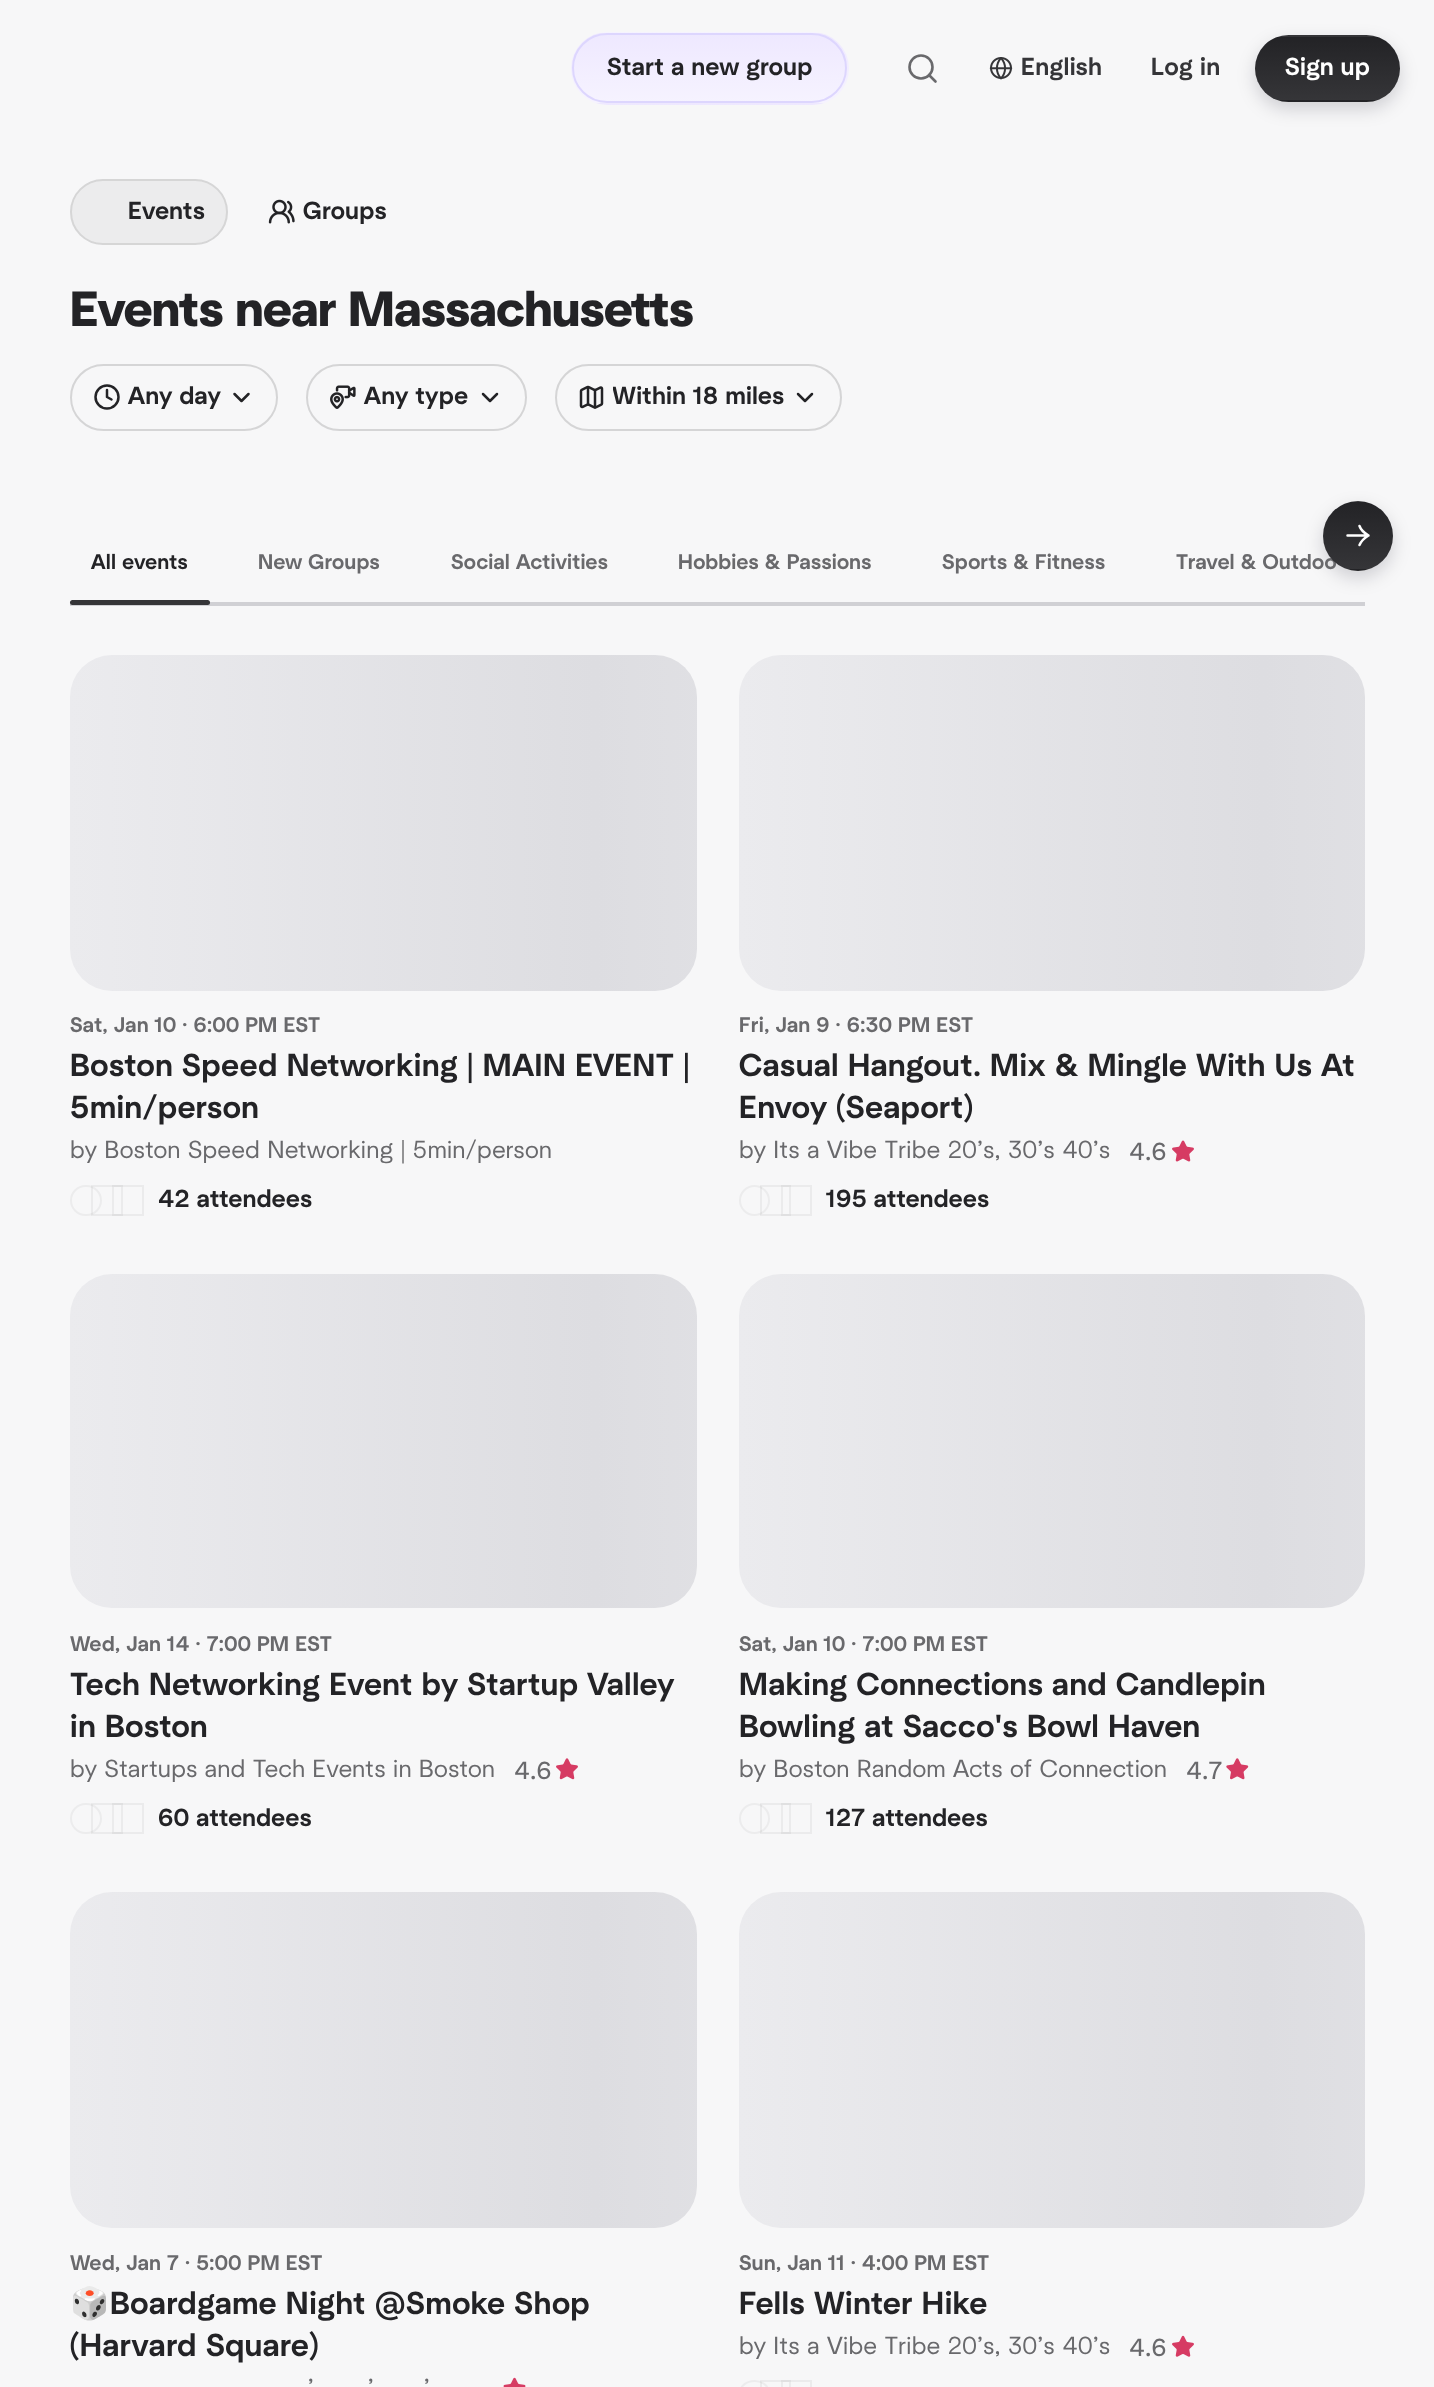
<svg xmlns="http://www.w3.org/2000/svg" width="1434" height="2387">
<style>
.a{font:500 24.5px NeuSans;letter-spacing:0.5px;fill:#232326}
.b{font:500 24.5px NeuSans;letter-spacing:0.5px;fill:#353538}
.c{font:500 24.5px NeuSans;letter-spacing:0.5px;fill:#fff}
.d{font:bold 49px NeuSans;fill:#232326}
.e{font:500 21px NeuSans;letter-spacing:0.4px;fill:#232326}
.f{font:500 21px NeuSans;letter-spacing:0.4px;fill:#69696c}
.g{font:500 31.5px NeuSans;letter-spacing:0.65px;fill:#232326}
.h{font:24.5px NeuSans;letter-spacing:0.5px;fill:#69696c}
.i{font:24.5px 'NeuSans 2';letter-spacing:0.5px;fill:#69696c}
.j{font:bold 31.5px Noto Color Emoji;letter-spacing:0.65px;fill:#232326}
</style>
<defs>
<clipPath id="clip1"><rect x="571" y="32" width="278" height="73" rx="36.5"/></clipPath>
<linearGradient id="g1" gradientUnits="userSpaceOnUse" x1="710" y1="-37" x2="710" y2="33"><stop offset="0" stop-color="#eee8ff"/><stop offset="1" stop-color="#f6f3ff"/></linearGradient>
<linearGradient id="g2" gradientUnits="userSpaceOnUse" x1="710" y1="33" x2="710" y2="103"><stop offset="0" stop-color="#eee8ff"/><stop offset="1" stop-color="#f6f3ff"/></linearGradient>
<linearGradient id="g3" gradientUnits="userSpaceOnUse" x1="710" y1="103" x2="710" y2="173"><stop offset="0" stop-color="#eee8ff"/><stop offset="1" stop-color="#f6f3ff"/></linearGradient>
<clipPath id="clip2"><rect x="1255" y="35" width="145" height="67" rx="33.5"/></clipPath>
<linearGradient id="g4" gradientUnits="userSpaceOnUse" x1="1327" y1="-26" x2="1327" y2="37"><stop offset="0" stop-color="#232326"/><stop offset="1" stop-color="#353538"/></linearGradient>
<linearGradient id="g5" gradientUnits="userSpaceOnUse" x1="1327" y1="37" x2="1327" y2="100"><stop offset="0" stop-color="#232326"/><stop offset="1" stop-color="#353538"/></linearGradient>
<linearGradient id="g6" gradientUnits="userSpaceOnUse" x1="1327" y1="100" x2="1327" y2="163"><stop offset="0" stop-color="#232326"/><stop offset="1" stop-color="#353538"/></linearGradient>
<clipPath id="clip3"><rect x="1323" y="501" width="70" height="70" rx="35"/></clipPath>
<linearGradient id="g7" gradientUnits="userSpaceOnUse" x1="1358" y1="436" x2="1358" y2="502"><stop offset="0" stop-color="#232326"/><stop offset="1" stop-color="#353538"/></linearGradient>
<linearGradient id="g8" gradientUnits="userSpaceOnUse" x1="1358" y1="569" x2="1358" y2="635"><stop offset="0" stop-color="#232326"/><stop offset="1" stop-color="#353538"/></linearGradient>
<linearGradient id="g9" gradientUnits="userSpaceOnUse" x1="70" y1="823" x2="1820" y2="822"><stop offset="0" stop-color="#ebebee"/><stop offset="0.3" stop-color="#dddde1"/><stop offset="0.6" stop-color="#ebebee"/></linearGradient>
<linearGradient id="g10" gradientUnits="userSpaceOnUse" x1="739" y1="823" x2="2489" y2="822"><stop offset="0" stop-color="#ebebee"/><stop offset="0.3" stop-color="#dddde1"/><stop offset="0.6" stop-color="#ebebee"/></linearGradient>
<linearGradient id="g11" gradientUnits="userSpaceOnUse" x1="70" y1="1441" x2="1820" y2="1441"><stop offset="0" stop-color="#ebebee"/><stop offset="0.3" stop-color="#dddde1"/><stop offset="0.6" stop-color="#ebebee"/></linearGradient>
<linearGradient id="g12" gradientUnits="userSpaceOnUse" x1="739" y1="1441" x2="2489" y2="1441"><stop offset="0" stop-color="#ebebee"/><stop offset="0.3" stop-color="#dddde1"/><stop offset="0.6" stop-color="#ebebee"/></linearGradient>
<linearGradient id="g13" gradientUnits="userSpaceOnUse" x1="70" y1="2060" x2="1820" y2="2060"><stop offset="0" stop-color="#ebebee"/><stop offset="0.3" stop-color="#dddde1"/><stop offset="0.6" stop-color="#ebebee"/></linearGradient>
<linearGradient id="g14" gradientUnits="userSpaceOnUse" x1="739" y1="2060" x2="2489" y2="2060"><stop offset="0" stop-color="#ebebee"/><stop offset="0.3" stop-color="#dddde1"/><stop offset="0.6" stop-color="#ebebee"/></linearGradient>
<clipPath id="clip4"><path d="M613 380h171v35H613z"/></clipPath>
<linearGradient id="g15" gradientUnits="userSpaceOnUse" x1="1358" y1="502" x2="1358" y2="569"><stop offset="0" stop-color="#232326"/><stop offset="1" stop-color="#353538"/></linearGradient>
<clipPath id="clip5"><path d="M70 1012h250v28H70z"/></clipPath>
</defs>
<rect width="100%" height="100%" fill="#f7f7f8"/>
<g clip-path="url(#clip1)">
<path fill="url(#g1)" d="M599 32h222v1H599z"/>
<path fill="url(#g2)" d="M571 33h278v70H571z"/>
<path fill="url(#g3)" d="M596 103h228v2H596z"/>
</g>
<rect fill="none" stroke="#ddd6fe" stroke-width="2" x="573" y="34" width="273" height="68" rx="34"/>
<path fill="none" stroke="#69696c" stroke-width="2.6" stroke-linecap="round" stroke-linejoin="round" d="M935.5 81.5l-6.5-6.5"/>
<circle fill="none" stroke="#69696c" stroke-width="2.6" cx="921" cy="67" r="11.5"/>
<image href="1.png" x="989" y="57" width="24" height="23"/>
<rect fill="#00001029" filter="blur(9px)" x="1255" y="42" width="145" height="67" rx="33.5"/>
<g clip-path="url(#clip2)">
<path fill="url(#g4)" d="M1277 35h101v2H1277z"/>
<path fill="url(#g5)" d="M1255 37h145v63H1255z"/>
<path fill="url(#g6)" d="M1277 100h101v2H1277z"/>
</g>
<rect fill="#ececed" x="70" y="179" width="158" height="66" rx="33"/>
<rect fill="none" stroke="#1212151a" stroke-width="2" x="71" y="180" width="156" height="64" rx="32"/>
<image href="2.png" x="268" y="199" width="27" height="25"/>
<rect fill="none" stroke="#d5d5d6" stroke-width="2" x="71" y="365" width="206" height="65" rx="32.5"/>
<circle fill="none" stroke="#232326" stroke-width="2.5" cx="107" cy="397" r="11.5"/>
<path fill="none" stroke="#232326" stroke-width="2.5" stroke-linecap="round" stroke-linejoin="round" d="M107 390v7l4.5 2.5"/>
<path fill="none" stroke="#232326" stroke-width="2.5" stroke-linecap="round" stroke-linejoin="round" d="M234.5 394l7 7l7-7"/>
<rect fill="none" stroke="#d5d5d6" stroke-width="2" x="307" y="365" width="219" height="65" rx="32.5"/>
<image href="3.png" x="330" y="385" width="26" height="24"/>
<path fill="none" stroke="#232326" stroke-width="2.5" stroke-linecap="round" stroke-linejoin="round" d="M483 394l7 7l7-7"/>
<rect fill="none" stroke="#d5d5d6" stroke-width="2" x="556" y="365" width="285" height="65" rx="32.5"/>
<image href="4.png" x="579" y="385" width="25" height="24"/>
<path fill="none" stroke="#232326" stroke-width="2.5" stroke-linecap="round" stroke-linejoin="round" d="M798 394l7 7l7-7"/>
<path fill="#d0d0d4" d="M70 602h1295v4H70z"/>
<rect fill="#353538" x="70" y="600" width="140" height="5" rx="2.5"/>
<rect fill="#00001029" filter="blur(9px)" x="1323" y="508" width="70" height="70" rx="35"/>
<g clip-path="url(#clip3)">
<path fill="url(#g7)" d="M1350 501h16v1H1350z"/>
<path fill="url(#g8)" d="M1346 569h24v2H1346z"/>
</g>
<rect fill="url(#g9)" x="70" y="655" width="627" height="336" rx="42"/>
<rect fill="none" stroke="#ececed" stroke-width="2" x="71" y="1186" width="30" height="29" rx="14.5"/>
<path fill="none" stroke="#1212150d" stroke-width="2" d="M92 1186h30v29H92z"/>
<path fill="none" stroke="#1212150d" stroke-width="2" d="M113 1186h30v29H113z"/>
<rect fill="url(#g10)" x="739" y="655" width="626" height="336" rx="42"/>
<image href="5.png" x="1172" y="1140" width="22" height="22"/>
<circle fill="none" stroke="#ececed" stroke-width="2" cx="754.5" cy="1200.5" r="14.5"/>
<path fill="none" stroke="#1212150d" stroke-width="2" d="M761 1186h29v29H761z"/>
<path fill="none" stroke="#1212150d" stroke-width="2" d="M782 1186h29v29H782z"/>
<rect fill="url(#g11)" x="70" y="1274" width="627" height="334" rx="42"/>
<image href="6.png" x="556" y="1758" width="22" height="22"/>
<rect fill="none" stroke="#ececed" stroke-width="2" x="71" y="1804" width="30" height="29" rx="14.5"/>
<path fill="none" stroke="#1212150d" stroke-width="2" d="M92 1804h30v29H92z"/>
<path fill="none" stroke="#1212150d" stroke-width="2" d="M113 1804h30v29H113z"/>
<rect fill="url(#g12)" x="739" y="1274" width="626" height="334" rx="42"/>
<image href="7.png" x="1226" y="1758" width="23" height="22"/>
<circle fill="none" stroke="#ececed" stroke-width="2" cx="754.5" cy="1818.5" r="14.5"/>
<path fill="none" stroke="#1212150d" stroke-width="2" d="M761 1804h29v29H761z"/>
<path fill="none" stroke="#1212150d" stroke-width="2" d="M782 1804h29v29H782z"/>
<rect fill="url(#g13)" x="70" y="1892" width="627" height="336" rx="42"/>
<image href="8.png" x="503" y="2377" width="23" height="10"/>
<rect fill="url(#g14)" x="739" y="1892" width="626" height="336" rx="42"/>
<image href="9.png" x="1172" y="2335" width="22" height="22"/>
<rect fill="none" stroke="#ececed" stroke-width="2" x="740" y="2381" width="29" height="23" rx="14.5"/>
<path fill="none" stroke="#1212150d" stroke-width="2" d="M761 2381h29v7H761z"/>
<path fill="none" stroke="#1212150d" stroke-width="2" d="M782 2381h29v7H782z"/>
<text class="a" x="607" y="75">Start a new group</text>
<text class="b" x="1021" y="75">English</text>
<text class="b" x="1151" y="75">Log in</text>
<text class="c" x="1285" y="75">Sign up</text>
<text class="a" x="128" y="219">Events</text>
<text class="a" x="303" y="219">Groups</text>
<text class="d" x="70" y="326">Events near Massachusetts</text>
<text class="a" x="128" y="404">Any day</text>
<text class="a" x="364" y="404">Any type</text>
<g clip-path="url(#clip4)">
<text class="a" x="612" y="404">Within 18 miles</text>
</g>
<text class="e" x="91" y="569">All events</text>
<text class="f" x="258" y="569">New Groups</text>
<text class="f" x="451" y="569">Social Activities</text>
<text class="f" x="678" y="569">Hobbies &amp; Passions</text>
<text class="f" x="942" y="569">Sports &amp; Fitness</text>
<text class="f" x="1176" y="569">Travel &amp; Outdoo</text>
<g clip-path="url(#clip3)">
<path fill="url(#g15)" d="M1323 502h70v67H1323z"/>
</g>
<path fill="none" stroke="#fff" stroke-width="2.5" stroke-linecap="round" stroke-linejoin="round" d="M1359.5 526c1.5 4.5 4 6.5 9 9.5c-5 3-7 5-9 9.5m-12-9.5h21"/>
<g clip-path="url(#clip5)">
<text class="f" x="70" y="1032">Sat, Jan 10 · 6:00 PM EST</text>
</g>
<text class="g" x="70" y="1076">Boston Speed Networking | MAIN EVENT |</text>
<text class="g" x="70" y="1118">5min/person</text>
<text class="h" x="70" y="1158">by Boston Speed Networking | 5min/person</text>
<text class="a" x="158" y="1207">42 attendees</text>
<text class="f" x="739" y="1032">Fri, Jan 9 · 6:30 PM EST</text>
<text class="g" x="739" y="1076">Casual Hangout. Mix &amp; Mingle With Us At</text>
<text class="g" x="739" y="1118">Envoy (Seaport)</text>
<text class="h" x="739" y="1158">by Its a Vibe Tribe 20’s, 30’s 40’s</text>
<text class="i" x="1129" y="1160">4.6</text>
<text class="a" x="826" y="1207">195 attendees</text>
<text class="f" x="70" y="1651">Wed, Jan 14 · 7:00 PM EST</text>
<text class="g" x="70" y="1695">Tech Networking Event by Startup Valley</text>
<text class="g" x="70" y="1737">in Boston</text>
<text class="h" x="70" y="1777">by Startups and Tech Events in Boston</text>
<text class="i" x="514" y="1779">4.6</text>
<text class="a" x="158" y="1826">60 attendees</text>
<text class="f" x="739" y="1651">Sat, Jan 10 · 7:00 PM EST</text>
<text class="g" x="739" y="1695">Making Connections and Candlepin</text>
<text class="g" x="739" y="1737">Bowling at Sacco's Bowl Haven</text>
<text class="h" x="739" y="1777">by Boston Random Acts of Connection</text>
<text class="i" x="1186" y="1779">4.7</text>
<text class="a" x="826" y="1826">127 attendees</text>
<text class="f" x="70" y="2270">Wed, Jan 7 · 5:00 PM EST</text>
<text class="j" x="70" y="2314">🎲</text>
<text class="g" x="110" y="2314">Boardgame Night @Smoke Shop</text>
<text class="g" x="70" y="2356">(Harvard Square)</text>
<text class="h" x="308" y="2396">’</text>
<text class="h" x="368" y="2396">’</text>
<text class="h" x="424" y="2396">’</text>
<text class="f" x="739" y="2270">Sun, Jan 11 · 4:00 PM EST</text>
<text class="g" x="739" y="2314">Fells Winter Hike</text>
<text class="h" x="739" y="2354">by Its a Vibe Tribe 20’s, 30’s 40’s</text>
<text class="i" x="1129" y="2356">4.6</text>
</svg>
